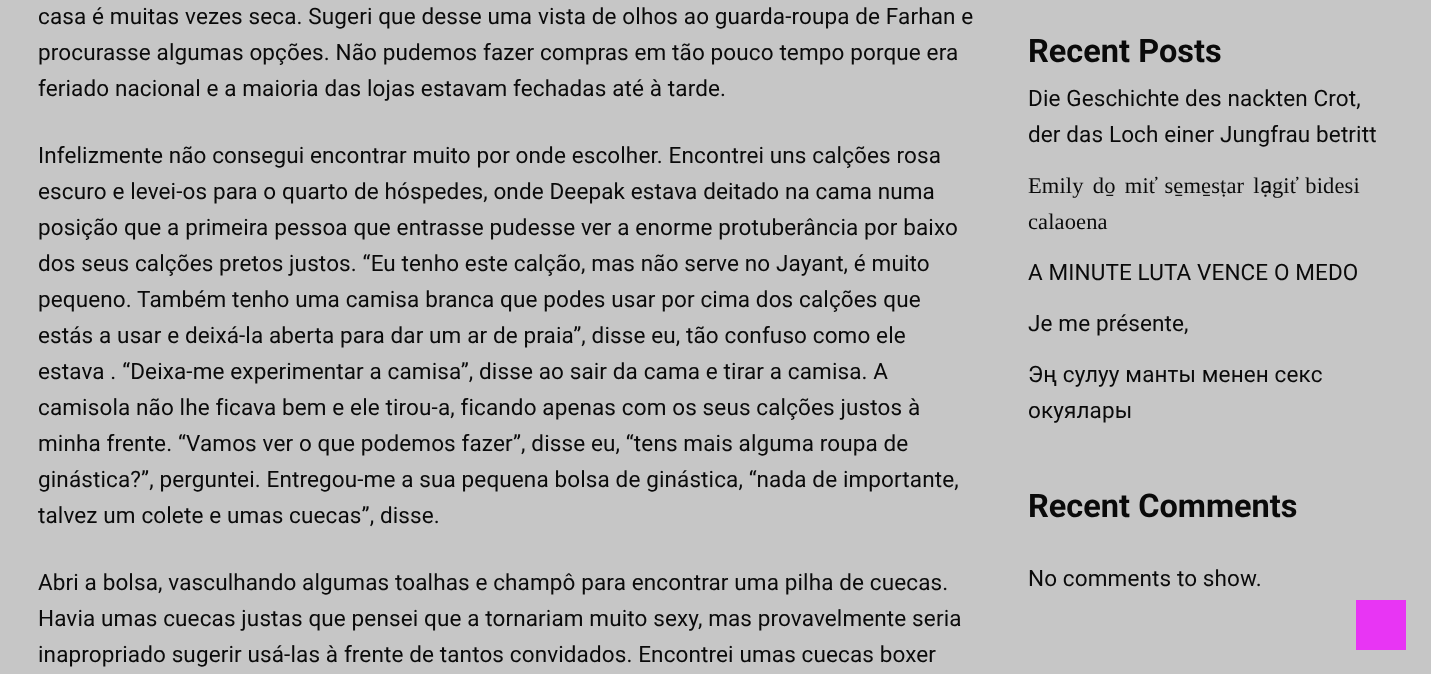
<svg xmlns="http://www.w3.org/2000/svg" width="1431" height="674">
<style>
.a{font:22.5px Roboto;letter-spacing:0.12px;fill:#0a0a0a}
.b{font:bold 32.5px Roboto;fill:#0a0a0a}
.c{font:22.5px Liberation Serif;letter-spacing:0.12px;fill:#0a0a0a}
</style>
<rect width="100%" height="100%" fill="#c6c6c6"/>
<path fill="#e835f4" d="M1356 600h50v50H1356z"/>
<text class="a" x="38" y="24">casa é muitas vezes seca. Sugeri que desse uma vista de olhos ao guarda-roupa de Farhan e</text>
<text class="a" x="38" y="60">procurasse algumas opções. Não pudemos fazer compras em tão pouco tempo porque era</text>
<text class="a" x="38" y="96">feriado nacional e a maioria das lojas estavam fechadas até à tarde.</text>
<text class="a" x="38" y="163">Infelizmente não consegui encontrar muito por onde escolher. Encontrei uns calções rosa</text>
<text class="a" x="38" y="199">escuro e levei-os para o quarto de hóspedes, onde Deepak estava deitado na cama numa</text>
<text class="a" x="38" y="235">posição que a primeira pessoa que entrasse pudesse ver a enorme protuberância por baixo</text>
<text class="a" x="38" y="271">dos seus calções pretos justos. “Eu tenho este calção, mas não serve no Jayant, é muito</text>
<text class="a" x="38" y="307">pequeno. Também tenho uma camisa branca que podes usar por cima dos calções que</text>
<text class="a" x="38" y="343">estás a usar e deixá-la aberta para dar um ar de praia”, disse eu, tão confuso como ele</text>
<text class="a" x="38" y="379">estava . “Deixa-me experimentar a camisa”, disse ao sair da cama e tirar a camisa. A</text>
<text class="a" x="38" y="415">camisola não lhe ficava bem e ele tirou-a, ficando apenas com os seus calções justos à</text>
<text class="a" x="38" y="451">minha frente. “Vamos ver o que podemos fazer”, disse eu, “tens mais alguma roupa de</text>
<text class="a" x="38" y="487">ginástica?”, perguntei. Entregou-me a sua pequena bolsa de ginástica, “nada de importante,</text>
<text class="a" x="38" y="523">talvez um colete e umas cuecas”, disse.</text>
<text class="a" x="38" y="590">Abri a bolsa, vasculhando algumas toalhas e champô para encontrar uma pilha de cuecas.</text>
<text class="a" x="38" y="626">Havia umas cuecas justas que pensei que a tornariam muito sexy, mas provavelmente seria</text>
<text class="a" x="38" y="662">inapropriado sugerir usá-las à frente de tantos convidados. Encontrei umas cuecas boxer</text>
<text class="b" x="1028" y="62">Recent Posts</text>
<text class="a" x="1028" y="106">Die Geschichte des nackten Crot,</text>
<text class="a" x="1028" y="142">der das Loch einer Jungfrau betritt</text>
<text class="c" x="1028" y="193" word-spacing="3.5">Emily do̠ mit̕ se̠me̠sṭar l</text>
<text class="a" x="1260" y="193">ạ</text>
<text class="c" x="1272" y="193" word-spacing="3.5">git̕ bidesi</text>
<text class="c" x="1028" y="229">calaoena</text>
<text class="a" x="1028" y="280">A MINUTE LUTA VENCE O MEDO</text>
<text class="a" x="1028" y="331">Je me présente,</text>
<text class="a" x="1028" y="382">Эң сулуу манты менен секс</text>
<text class="a" x="1028" y="418">окуялары</text>
<text class="b" x="1028" y="517">Recent Comments</text>
<text class="a" x="1028" y="586">No comments to show.</text>
</svg>
